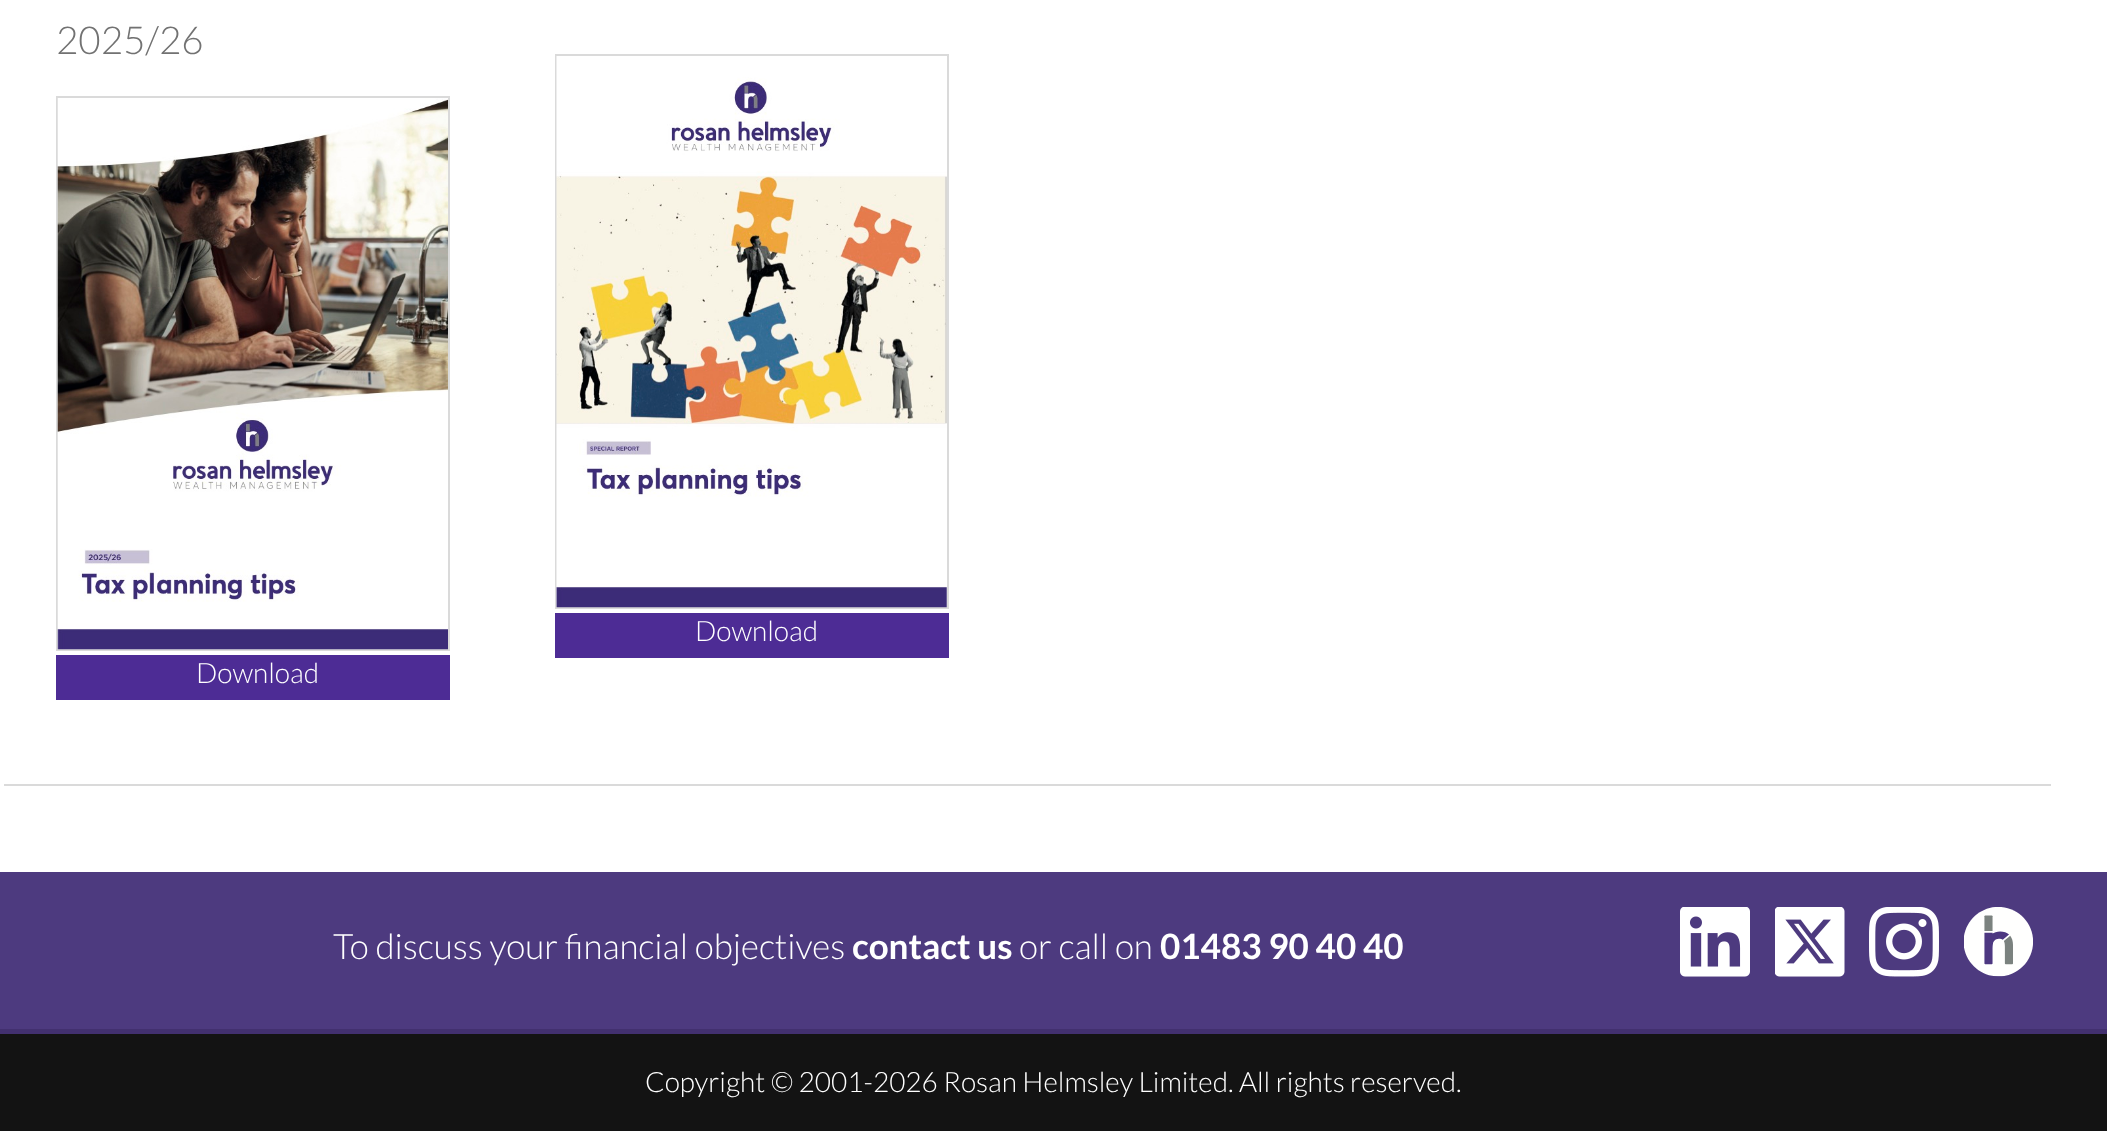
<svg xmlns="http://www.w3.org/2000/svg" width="2107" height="1131">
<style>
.a{font:300 38.5px Lato;fill:#727272}
.b{font:300 28px Lato;fill:#fff}
.c{font:300 35px Lato;fill:#fff}
.d{font:bold 35px Lato;fill:#fff}
</style>
<rect width="100%" height="100%" fill="#131313"/>
<path fill="#fff" d="M0 0h2107v872H0z"/>
<path fill="#dadada" d="M4 784h2047v2H4z"/>
<path fill="none" stroke="#dadada" stroke-width="2" d="M57 97h392v553H57z"/>
<image href="1.png" x="57" y="98" width="391" height="552"/>
<path fill="#4d2c95" d="M56 655h394v45H56z"/>
<path fill="none" stroke="#dadada" stroke-width="2" d="M556 55h392v553H556z"/>
<image href="2.png" x="556" y="56" width="391" height="552"/>
<path fill="#4d2c95" d="M555 613h394v45H555z"/>
<path fill="#4d3a7f" d="M0 872h2107v157H0z"/>
<path fill="#42306f" d="M0 1029h2107v5H0z"/>
<image href="3.png" x="1680" y="907" width="70" height="70"/>
<image href="4.png" x="1775" y="907" width="70" height="70"/>
<image href="5.png" x="1869" y="907" width="70" height="70"/>
<image href="6.png" x="1964" y="907" width="69" height="70"/>
<text class="a" x="56" y="54">2025/26</text>
<text class="b" x="196" y="683">Download</text>
<text class="b" x="695" y="641">Download</text>
<text class="c" x="333" y="959">To discuss your financial objectives</text>
<text class="d" x="852" y="959">contact us</text>
<text class="c" x="1019" y="959">or call on</text>
<text class="d" x="1160" y="959">01483 90 40 40</text>
<text class="b" x="645" y="1092">Copyright © 2001-2026 Rosan Helmsley Limited. All rights reserved.</text>
</svg>
